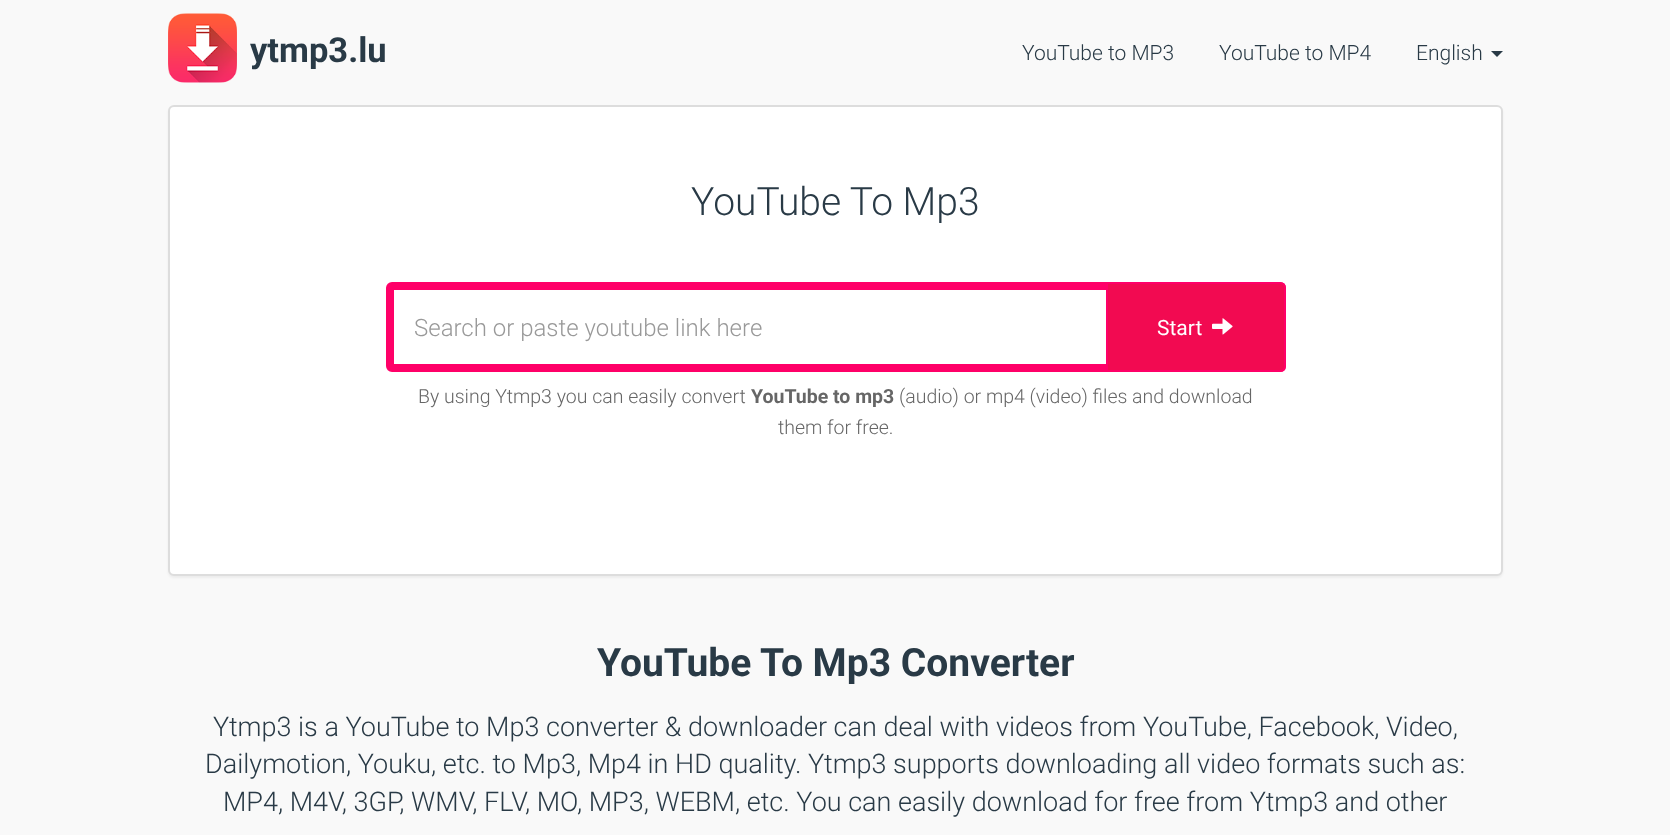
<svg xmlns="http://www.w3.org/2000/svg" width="1670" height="835">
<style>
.a{font:bold 34.5px Roboto;fill:#293a46}
.b{font:300 21px Roboto;fill:#293a46}
.c{font:300 39px Roboto;fill:#293a46}
.d{font:300 24px Roboto;fill:#999}
.e{font:21px Roboto;fill:#fff}
.f{font:300 19.5px Roboto;fill:#666}
.g{font:bold 19.5px Roboto;fill:#666}
.h{font:bold 39px Roboto;fill:#293a46}
.i{font:300 27px Roboto;fill:#293a46}
</style>
<rect width="100%" height="100%" fill="#f9f9f9"/>
<image href="1.png" x="168" y="13" width="69" height="70"/>
<path fill="#293a46" d="M1491 51h12l-6 6z"/>
<rect fill="#0000000d" filter="blur(1px)" x="168" y="107" width="1335" height="471" rx="6"/>
<rect fill="#fff" stroke="#ddd" stroke-width="2" x="169" y="106" width="1333" height="469" rx="5"/>
<rect fill="none" stroke="#ff0068" stroke-width="8" x="390" y="286" width="892" height="82" rx="2"/>
<path fill="#f20a51" stroke="#ff0068" stroke-width="2" d="M1107 283h173c3 0 5 2 5 5v78c0 3-2 5-5 5h-173z"/>
<image href="2.png" x="1212" y="318" width="21" height="17"/>
<text class="a" x="250" y="62">ytmp3.lu</text>
<text class="b" x="1022" y="60">YouTube to MP3</text>
<text class="b" x="1219" y="60">YouTube to MP4</text>
<text class="b" x="1416" y="60">English</text>
<text class="c" x="691" y="215">YouTube To Mp3</text>
<text class="d" x="414" y="336">Search or paste youtube link here</text>
<text class="e" x="1157" y="335">Start</text>
<text class="f" x="418" y="403">By using Ytmp3 you can easily convert</text>
<text class="g" x="751" y="403">YouTube to mp3</text>
<text class="f" x="899" y="403">(audio) or mp4 (video) files and download</text>
<text class="f" x="778" y="434">them for free.</text>
<text class="h" x="597" y="676">YouTube To Mp3 Converter</text>
<text class="i" x="213" y="736">Ytmp3 is a YouTube to Mp3 converter &amp; downloader can deal with videos from YouTube, Facebook, Video,</text>
<text class="i" x="205" y="773">Dailymotion, Youku, etc. to Mp3, Mp4 in HD quality. Ytmp3 supports downloading all video formats such as:</text>
<text class="i" x="223" y="811">MP4, M4V, 3GP, WMV, FLV, MO, MP3, WEBM, etc. You can easily download for free from Ytmp3 and other</text>
</svg>
